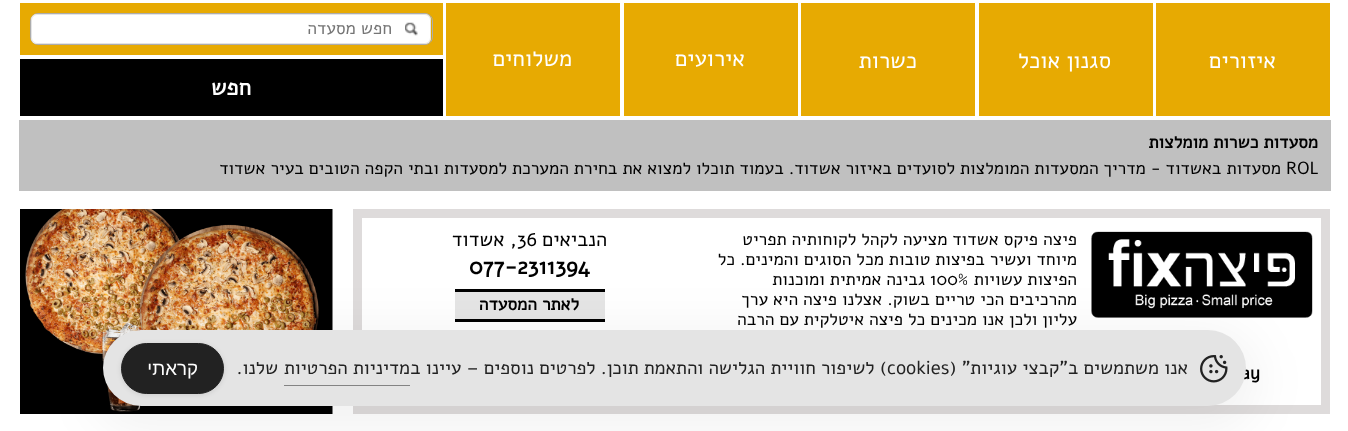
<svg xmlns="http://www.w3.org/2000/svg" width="1348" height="431">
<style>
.a{font:22.5px Alef;direction:rtl;fill:#fff}
.b{font:17.5px Alef;direction:rtl;fill:#757575}
.c{font:bold 22.5px Alef;direction:rtl;fill:#fff}
.d{font:bold 17.5px Alef;direction:rtl;fill:#000}
.e{font:17.5px Alef;fill:#000}
.f{font:17.5px Alef;direction:rtl;fill:#000}
.g{font:20px Alef;direction:rtl;fill:#000}
.h{font:20px Alef;fill:#000}
.i{font:bold 22.5px Alef;fill:#000}
.j{font:bold 17.5px Alef;fill:#000}
.k{font:18.75px Alef;direction:rtl;fill:#222}
.l{font:18.75px Alef;fill:#222}
.m{font:18.75px Liberation Sans;direction:rtl;fill:#fff}
</style>
<rect width="100%" height="100%" fill="#fff"/>
<path fill="#e7aa02" d="M1156 3h174v113H1156z"/>
<path fill="#e7aa02" d="M979 3h174v113H979z"/>
<path fill="#e7aa02" d="M801 3h174v113H801z"/>
<path fill="#e7aa02" d="M624 3h174v113H624z"/>
<path fill="#e7aa02" d="M446 3h174v113H446z"/>
<path fill="#e7aa02" d="M20 3h423v52H20z"/>
<rect fill="none" stroke="#acacac" x="30.5" y="13.5" width="402" height="31" rx="7.5"/>
<rect fill="#fff" x="31" y="14" width="400" height="30" rx="6"/>
<image href="1.png" x="405" y="22" width="13" height="14"/>
<rect fill="none" stroke="#e4e4e4" x="31.5" y="14.5" width="399" height="29" rx="5.5"/>
<path fill="#000" d="M20 59h423v57H20z"/>
<path fill="#c0c0c0" d="M19 120h1312v71H19z"/>
<path fill="none" stroke="#dedbdb" stroke-width="9" d="M357.5 213.5h968v196H357.5z"/>
<path fill="#e5e5e5" d="M455 292h150v27H455z"/>
<path fill="#000" d="M455 289h150v3H455z"/>
<path fill="#000" d="M455 319h150v3H455z"/>
<image href="2.png" x="1091" y="231" width="222" height="87"/>
<image href="3.png" x="20" y="209" width="313" height="205"/>
<rect fill="#0000000d" filter="blur(25px)" x="90" y="330" width="1169" height="101" rx="50.5"/>
<text class="a" x="1276" y="68">איזורים</text>
<text class="a" x="1111" y="68">סגנון אוכל</text>
<text class="a" x="917" y="68">כשרות</text>
<text class="a" x="745" y="66">אירועים</text>
<text class="a" x="572" y="66">משלוחים</text>
<text class="b" x="392" y="34">חפש מסעדה</text>
<text class="c" x="251" y="95">חפש</text>
<text class="d" x="1318" y="148">מסעדות כשרות מומלצות</text>
<text class="e" x="1286" y="174">ROL</text>
<text class="f" x="1281" y="174">מסעדות באשדוד - מדריך המסעדות המומלצות לסועדים באיזור אשדוד. בעמוד תוכלו למצוא את בחירת המערכת למסעדות ובתי הקפה הטובים בעיר אשדוד</text>
<text class="f" x="1077" y="245">פיצה פיקס אשדוד מציעה לקהל לקוחותיה תפריט</text>
<text class="f" x="1077" y="265">מיוחד ועשיר בפיצות טובות מכל הסוגים והמינים. כל</text>
<text class="f" x="1077" y="285">הפיצות עשויות</text>
<text class="e" x="930" y="285">100%</text>
<text class="f" x="925" y="285">גבינה אמיתית ומוכנות</text>
<text class="f" x="1077" y="305">מהרכיבים הכי טריים בשוק. אצלנו פיצה היא ערך</text>
<text class="f" x="1077" y="325">עליון ולכן אנו מכינים כל פיצה איטלקית עם הרבה</text>
<text class="g" x="607" y="246">הנביאים</text>
<text class="h" x="517" y="246">36</text>
<text class="g" x="517" y="246">, אשדוד</text>
<text class="i" x="469" y="274">077-2311394</text>
<text class="d" x="579" y="310">לאתר המסעדה</text>
<text class="j" x="1241" y="379">ay</text>
<rect fill="#e4e4e4" x="103" y="330" width="1143" height="76" rx="38"/>
<image href="4.png" x="1200" y="355" width="28" height="28"/>
<text class="k" x="1188" y="374">אנו משתמשים ב"קבצי עוגיות" (</text>
<text class="l" x="887" y="374">cookies</text>
<text class="k" x="887" y="374">) לשיפור חוויית הגלישה והתאמת תוכן. לפרטים נוספים – עיינו ב</text>
<text class="k" x="410" y="374">מדיניות הפרטיות</text>
<path fill="#838383" d="M284 385h126v1H284z"/>
<text class="k" x="278" y="374">שלנו.</text>
<rect fill="#0000001a" filter="blur(2.5px)" x="121" y="344" width="103" height="51" rx="25.5"/>
<rect fill="#222" stroke="#222" x="121.5" y="343.5" width="102" height="50" rx="25"/>
<text class="m" x="198" y="375">קראתי</text>
</svg>
